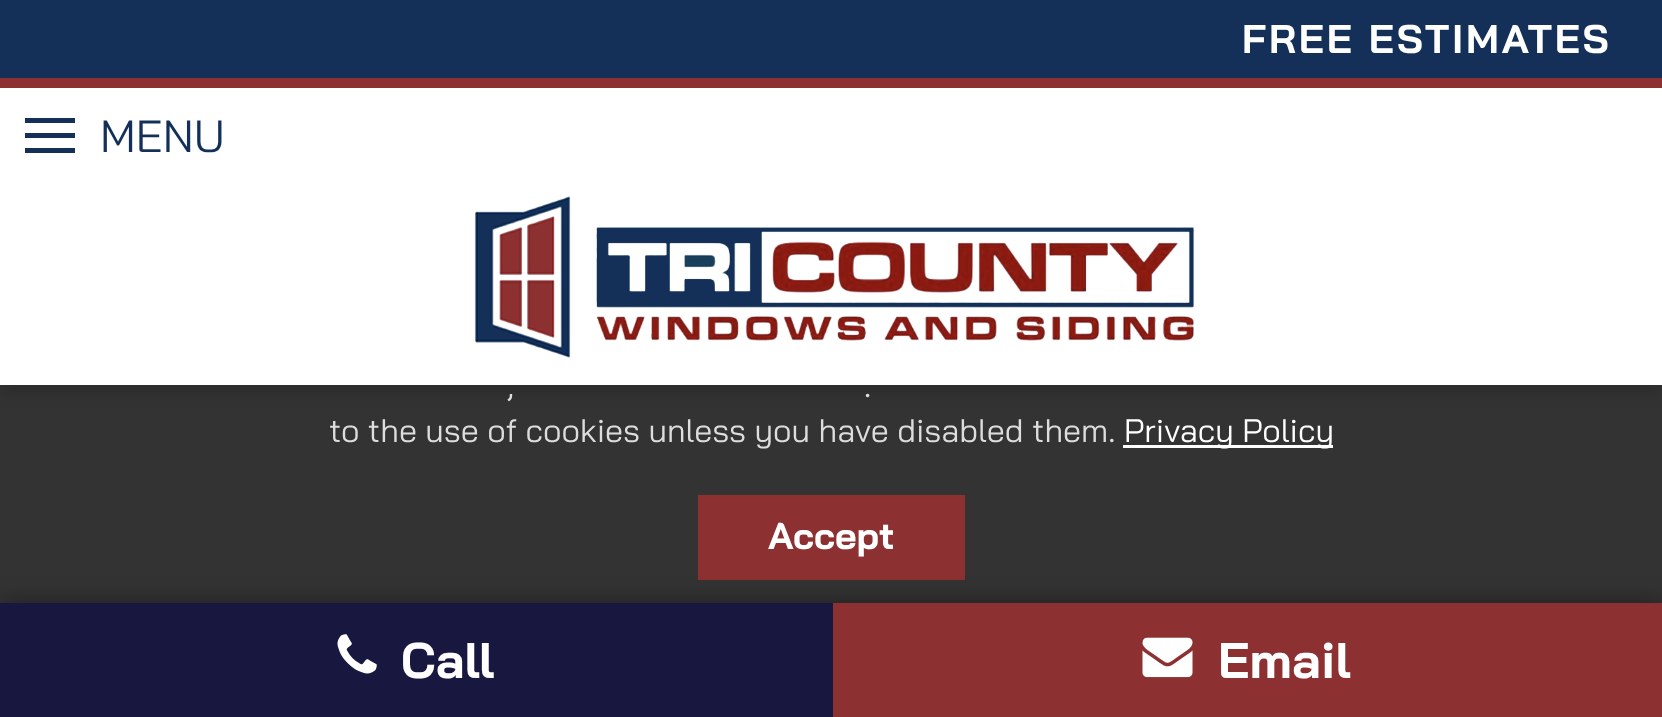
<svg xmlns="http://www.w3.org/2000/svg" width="1662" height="717">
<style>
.a{font:bold 40px Bai Jamjuree;letter-spacing:2.75px;fill:#fff}
.b{font:45px Bai Jamjuree;fill:#143058}
.c{font:32.5px Bai Jamjuree;fill:#ddd}
.d{font:32.5px Bai Jamjuree;fill:#fff}
.e{font:bold 37.5px Bai Jamjuree;fill:#fff}
.f{font:bold 50px Bai Jamjuree;fill:#fff}
</style>
<rect width="100%" height="100%" fill="#333"/>
<path fill="#00000026" filter="blur(7.5px)" d="M0 8h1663v385H0z"/>
<path fill="#143058" d="M0 0h1662v78H0z"/>
<path fill="#8c3031" d="M0 78h1662v10H0z"/>
<path fill="#fff" d="M0 88h1662v297H0z"/>
<path fill="#143058" d="M25 118h50v5h-50zm0 15h50v5h-50zm0 15h50v5h-50z"/>
<image href="1.png" x="474" y="196" width="721" height="162"/>
<path fill="#fff" d="M1123 445h210v3H1123z"/>
<path fill="#8c3031" d="M698 495h267v85H698z"/>
<path fill="#00000066" filter="blur(12.5px)" d="M0 603h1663v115H0z"/>
<path fill="#18173f" d="M0 603h833v114H0z"/>
<image href="2.png" x="337" y="634" width="40" height="40"/>
<path fill="#8c3031" d="M833 603h829v114H833z"/>
<image href="3.png" x="1142" y="637" width="51" height="41"/>
<text class="a" x="1242" y="53">FREE ESTIMATES</text>
<text class="b" x="100" y="152">MENU</text>
<text class="c" x="507" y="397">,</text>
<text class="c" x="864" y="397">.</text>
<text class="c" x="329" y="442">to the use of cookies unless you have disabled them.</text>
<text class="d" x="1124" y="442">Privacy Policy</text>
<text class="e" x="768" y="549">Accept</text>
<text class="f" x="401" y="678">Call</text>
<text class="f" x="1218" y="678">Email</text>
</svg>
